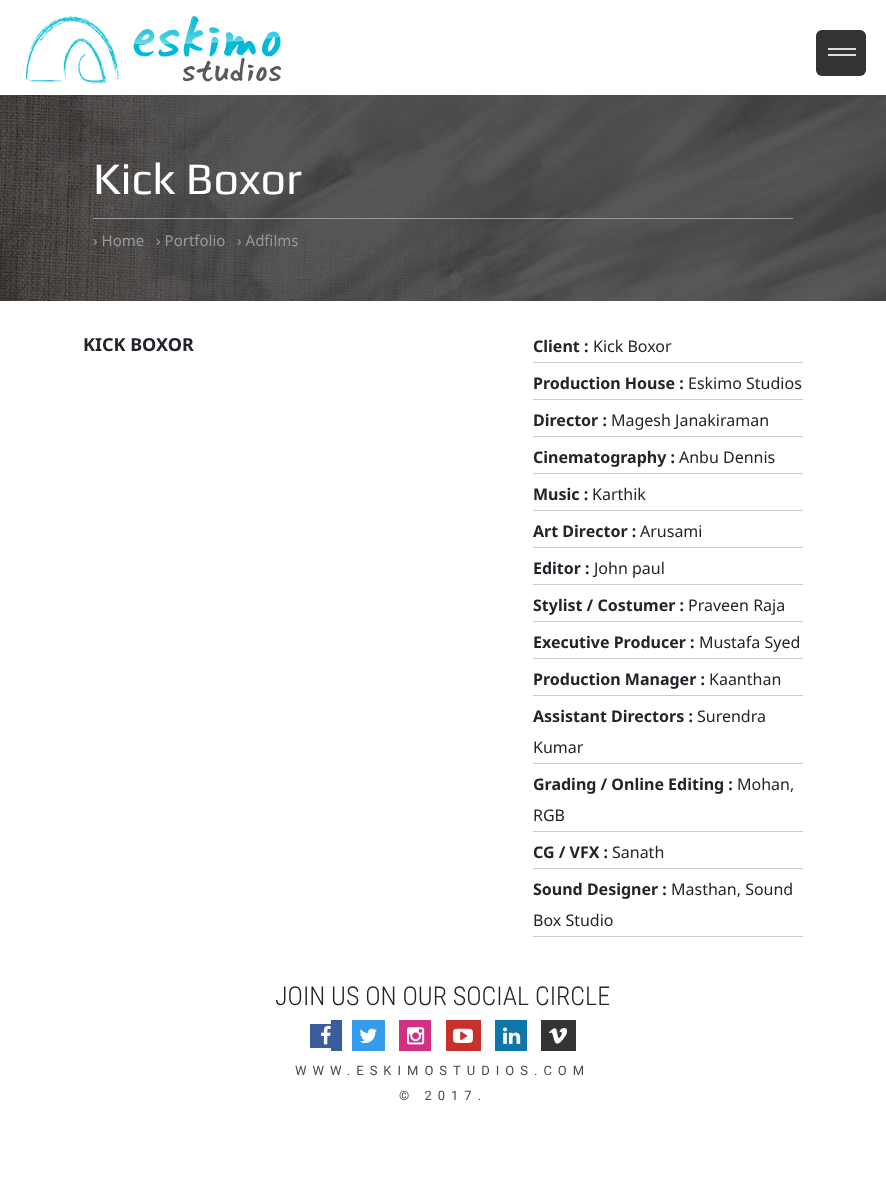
<svg xmlns="http://www.w3.org/2000/svg" width="886" height="1198">
<style>
.a{font:45px Play;fill:#fff}
.b{font:15px Noto Sans;fill:#999}
.c{font:bold 18px Noto Sans;fill:#212529}
.d{font:bold 16px Noto Sans;fill:#212529}
.e{font:16px Noto Sans;fill:#212529}
.f{font:300 26px Roboto Condensed;fill:#212529}
.g{font:13px Roboto;letter-spacing:6px;fill:#494949}
</style>
<rect width="100%" height="100%" fill="#fff"/>
<image href="1.png" x="25" y="16" width="256" height="68"/>
<rect fill="#333" x="816" y="30" width="50" height="46" rx="6"/>
<path fill="#ddd" d="M828 48h28v2H828z"/>
<path fill="#ddd" d="M828 54h28v2H828z"/>
<image href="2.png" x="0" y="95" width="886" height="206"/>
<path fill="#999" d="M93 218h700v1H93z"/>
<path fill="#ccc" d="M533 362h270v1H533z"/>
<path fill="#ccc" d="M533 399h270v1H533z"/>
<path fill="#ccc" d="M533 436h270v1H533z"/>
<path fill="#ccc" d="M533 473h270v1H533z"/>
<path fill="#ccc" d="M533 510h270v1H533z"/>
<path fill="#ccc" d="M533 547h270v1H533z"/>
<path fill="#ccc" d="M533 584h270v1H533z"/>
<path fill="#ccc" d="M533 621h270v1H533z"/>
<path fill="#ccc" d="M533 658h270v1H533z"/>
<path fill="#ccc" d="M533 695h270v1H533z"/>
<path fill="#ccc" d="M533 763h270v1H533z"/>
<path fill="#ccc" d="M533 831h270v1H533z"/>
<path fill="#ccc" d="M533 868h270v1H533z"/>
<path fill="#ccc" d="M533 936h270v1H533z"/>
<path fill="#3c5b9b" d="M310 1024h21v24H310z"/>
<path fill="#3c5b9b" d="M331 1020h11v31H331z"/>
<image href="3.png" x="321" y="1025" width="10" height="20"/>
<path fill="#359bed" d="M352 1020h33v31H352z"/>
<image href="4.png" x="359" y="1028" width="18" height="15"/>
<path fill="#d23083" d="M399 1020h32v31H399z"/>
<image href="5.png" x="407" y="1027" width="18" height="18"/>
<path fill="#c8312b" d="M446 1020h35v31H446z"/>
<image href="6.png" x="453" y="1028" width="20" height="15"/>
<path fill="#0e76a8" d="M495 1020h32v31H495z"/>
<image href="7.png" x="503" y="1027" width="18" height="17"/>
<path fill="#333" d="M541 1020h35v31H541z"/>
<image href="8.png" x="549" y="1028" width="19" height="16"/>
<text class="a" x="93" y="194">Kick Boxor</text>
<text class="b" x="93" y="246">› Home</text>
<text class="b" x="156" y="246">› Portfolio</text>
<text class="b" x="237" y="246">› Adfilms</text>
<text class="c" x="83" y="351">KICK BOXOR</text>
<text class="d" x="533" y="352">Client :</text>
<text class="e" x="593" y="352">Kick Boxor</text>
<text class="d" x="533" y="389">Production House :</text>
<text class="e" x="688" y="389">Eskimo Studios</text>
<text class="d" x="533" y="426">Director :</text>
<text class="e" x="611" y="426">Magesh Janakiraman</text>
<text class="d" x="533" y="463">Cinematography :</text>
<text class="e" x="679" y="463">Anbu Dennis</text>
<text class="d" x="533" y="500">Music :</text>
<text class="e" x="592" y="500">Karthik</text>
<text class="d" x="533" y="537">Art Director :</text>
<text class="e" x="640" y="537">Arusami</text>
<text class="d" x="533" y="574">Editor :</text>
<text class="e" x="594" y="574">John paul</text>
<text class="d" x="533" y="611">Stylist / Costumer :</text>
<text class="e" x="688" y="611">Praveen Raja</text>
<text class="d" x="533" y="648">Executive Producer :</text>
<text class="e" x="699" y="648">Mustafa Syed</text>
<text class="d" x="533" y="685">Production Manager :</text>
<text class="e" x="709" y="685">Kaanthan</text>
<text class="d" x="533" y="722">Assistant Directors :</text>
<text class="e" x="697" y="722">Surendra</text>
<text class="e" x="533" y="753">Kumar</text>
<text class="d" x="533" y="790">Grading / Online Editing :</text>
<text class="e" x="737" y="790">Mohan,</text>
<text class="e" x="533" y="821">RGB</text>
<text class="d" x="533" y="858">CG / VFX :</text>
<text class="e" x="612" y="858">Sanath</text>
<text class="d" x="533" y="895">Sound Designer :</text>
<text class="e" x="671" y="895">Masthan, Sound</text>
<text class="e" x="533" y="926">Box Studio</text>
<text class="f" x="275" y="1005">JOIN US ON OUR SOCIAL CIRCLE</text>
<text class="g" x="295" y="1075">WWW.ESKIMOSTUDIOS.COM</text>
<text class="g" x="399" y="1100">© 2017.</text>
</svg>
